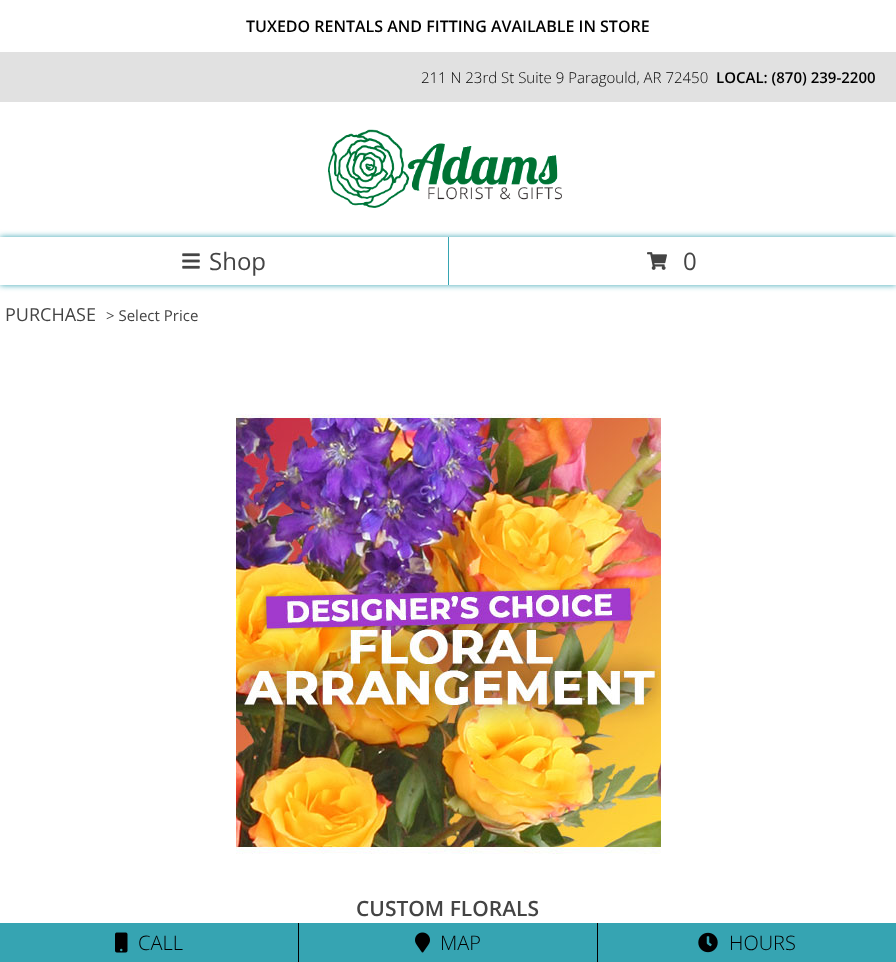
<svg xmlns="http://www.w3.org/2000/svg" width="896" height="962">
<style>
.a{font:600 16px Open Sans;fill:#000}
.b{font:300 15px Open Sans;fill:#000}
.c{font:600 15px Open Sans;fill:#000}
.d{font:24px Open Sans;fill:#444}
.e{font:18px Open Sans;fill:#444}
.f{font:15px Open Sans;fill:#444}
.g{font:600 21px Open Sans;fill:#444}
.h{font:300 20px Open Sans;fill:#000}
</style>
<rect width="100%" height="100%" fill="#fff"/>
<path fill="#e1e1e1" d="M0 52h896v50H0z"/>
<image href="1.png" x="328" y="129" width="234" height="79"/>
<path fill="#36a4b2" filter="blur(3px)" d="M0 237h896v48H0z"/>
<path fill="#36a4b2" d="M448 237h1v48H448z"/>
<path fill="#fff" d="M0 237h448v48H0z"/>
<image href="2.png" x="182" y="253" width="18" height="16"/>
<path fill="#fff" d="M449 237h447v48H449z"/>
<image href="3.png" x="647" y="252" width="20" height="18"/>
<image href="4.png" x="236" y="414" width="425" height="440"/>
<path fill="#36a4b2" d="M0 923h298v39H0z"/>
<image href="5.png" x="115" y="932" width="13" height="21"/>
<path fill="#36a4b2" d="M299 923h298v39H299z"/>
<path fill="#000" d="M298 923h1v39H298z"/>
<image href="6.png" x="415" y="932" width="15" height="21"/>
<path fill="#36a4b2" d="M598 923h298v39H598z"/>
<path fill="#000" d="M597 923h1v39H597z"/>
<image href="7.png" x="698" y="932" width="20" height="21"/>
<text class="a" x="246" y="32">TUXEDO RENTALS AND FITTING AVAILABLE IN STORE</text>
<text class="b" x="421" y="83">211 N 23rd St Suite 9 Paragould, AR 72450</text>
<text class="c" x="716" y="83">LOCAL: (870) 239-2200</text>
<text class="d" x="209" y="270">Shop</text>
<text class="d" x="683" y="270">0</text>
<text class="e" x="5" y="321">PURCHASE</text>
<text class="f" x="106" y="321">&gt; Select Price</text>
<text class="g" x="356" y="916">CUSTOM FLORALS</text>
<text class="h" x="138" y="950">CALL</text>
<text class="h" x="440" y="950">MAP</text>
<text class="h" x="729" y="950">HOURS</text>
</svg>
